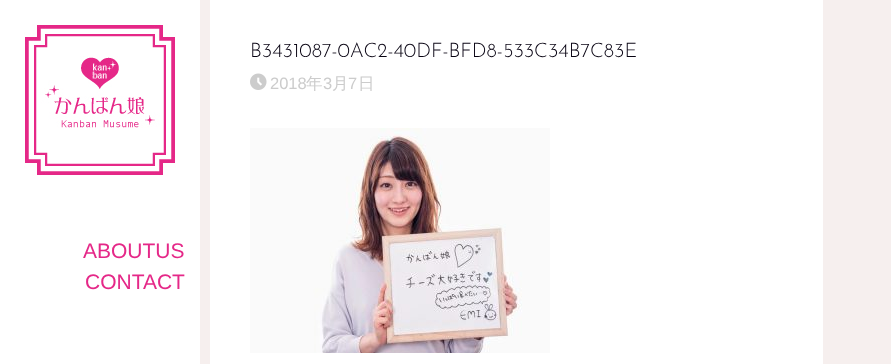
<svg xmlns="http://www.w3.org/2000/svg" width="891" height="364">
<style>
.a{font:300 20px Josefin Sans;fill:#070211}
.b{font:16.5px Liberation Sans;fill:#ccc}
.c{font:500 16.5px WenQuanYi Zen Hei;fill:#ccc}
.d{font:21px Liberation Sans;fill:#e52888}
</style>
<rect width="100%" height="100%" fill="#f6efee"/>
<path fill="#fff" d="M0 0h200v364H0z"/>
<path fill="#fff" d="M210 0h613v364H210z"/>
<image href="1.png" x="250" y="73" width="17" height="17"/>
<image href="2.png" x="250" y="128" width="300" height="225"/>
<image href="3.png" x="24" y="24" width="152" height="152"/>
<text class="a" x="250" y="57">B3431087-0AC2-40DF-BFD8-533C34B7C83E</text>
<text class="b" x="270" y="89">2018</text>
<text class="c" x="306" y="89">年</text>
<text class="b" x="323" y="89">3</text>
<text class="c" x="332" y="89">月</text>
<text class="b" x="348" y="89">7</text>
<text class="c" x="358" y="89">日</text>
<text class="d" x="83" y="258">ABOUTUS</text>
<text class="d" x="85" y="289">CONTACT</text>
</svg>
